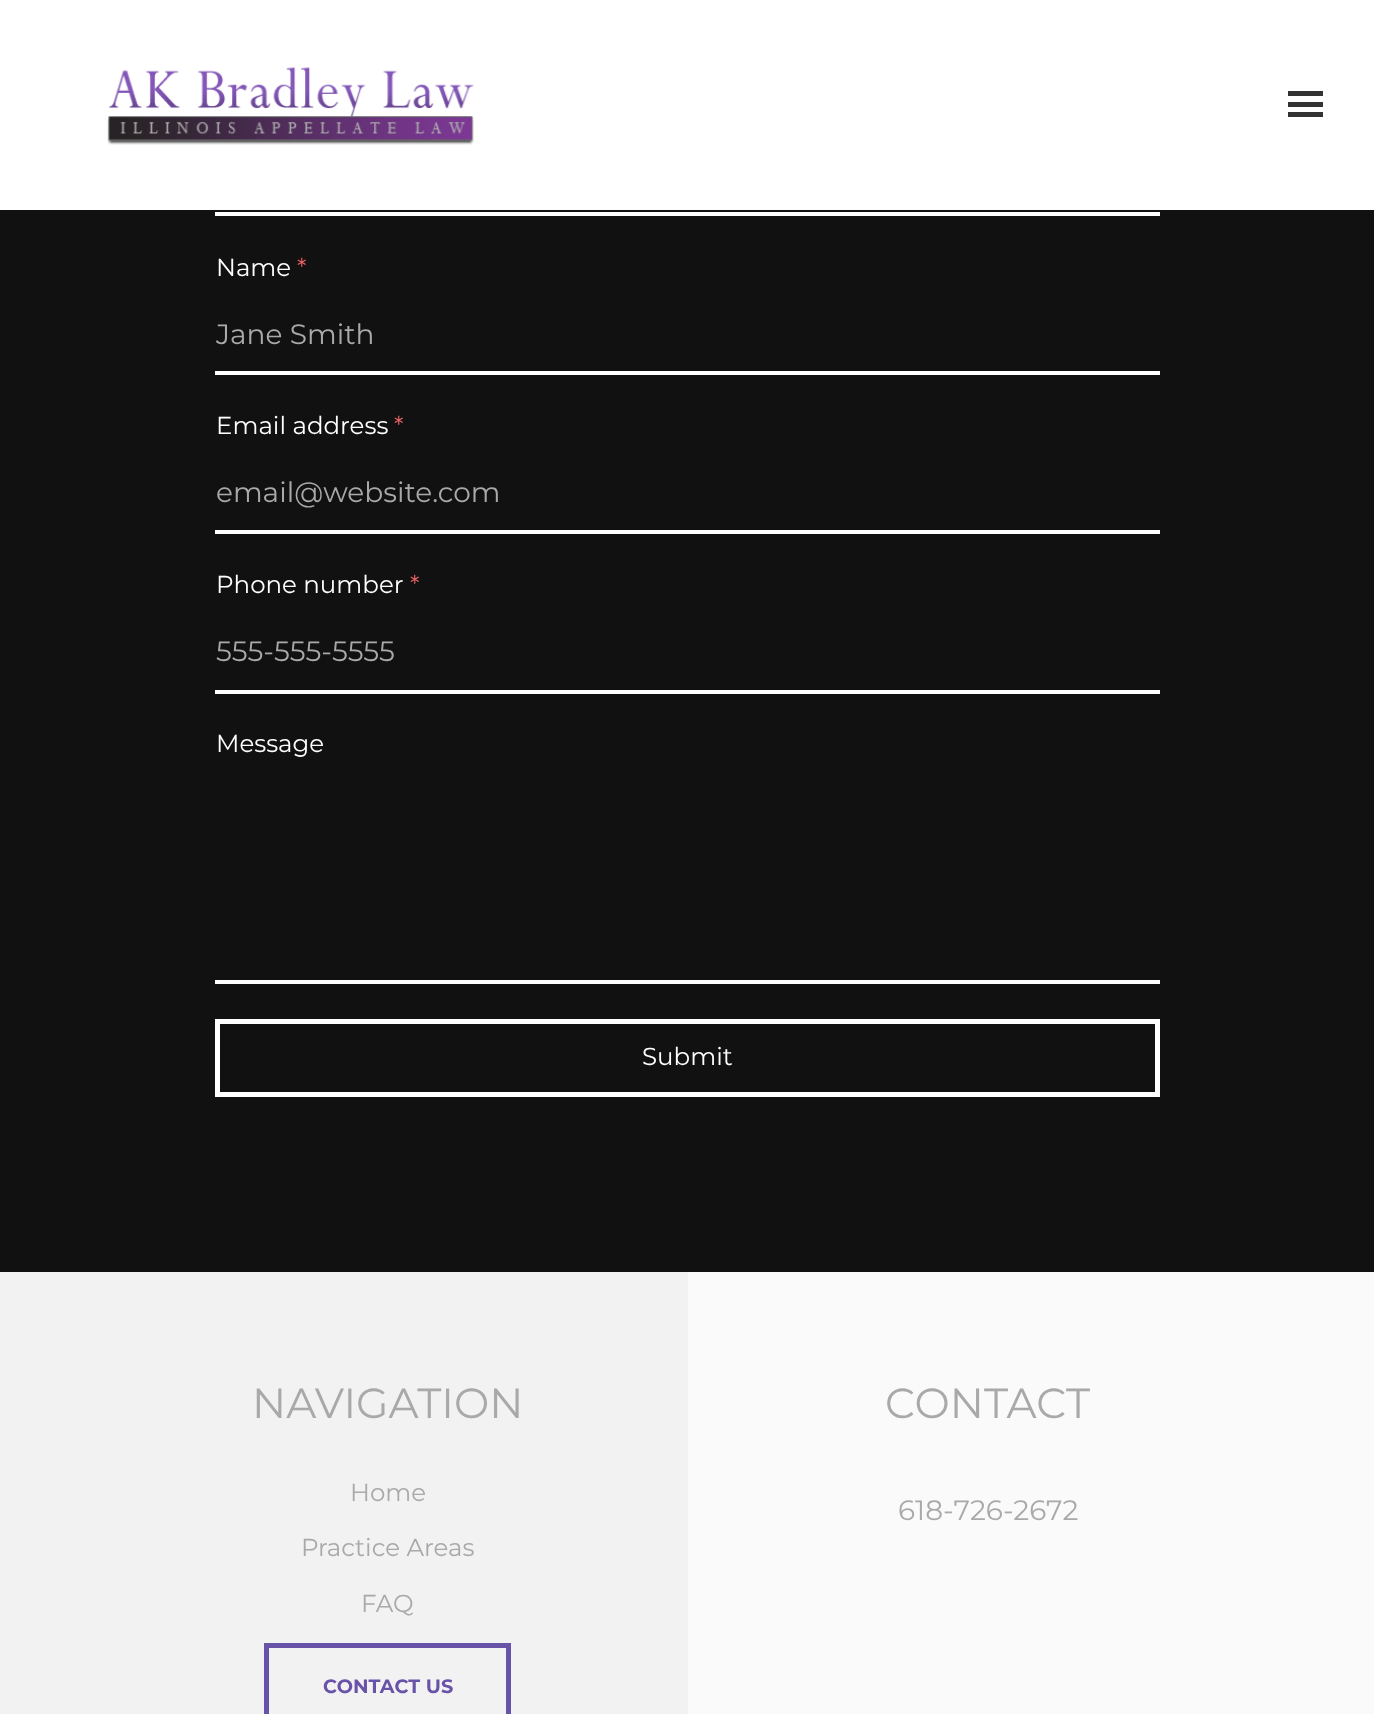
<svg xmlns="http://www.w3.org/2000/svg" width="1374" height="1714">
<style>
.a{font:24.5px Montserrat;fill:#fff}
.b{font:24.5px Montserrat;fill:#ec6366}
.c{font:28px Montserrat;fill:#a9a9a9}
.d{font:42px Montserrat;fill:#a9a9a9}
.e{font:24.5px Montserrat;fill:#a9a9a9}
.f{font:bold 19.25px Montserrat;fill:#6953a8}
</style>
<rect width="100%" height="100%" fill="#111"/>
<path fill="#fff" d="M0 0h1374v210H0z"/>
<image href="1.png" x="107" y="67" width="367" height="78"/>
<path fill="#333" d="M1288 102h35v5H1288z"/>
<path fill="#333" d="M1288 91h35v5H1288z"/>
<path fill="#333" d="M1288 112h35v5H1288z"/>
<path fill="#fff" d="M215 212h945v4H215z"/>
<path fill="#fff" d="M215 371h945v4H215z"/>
<path fill="#fff" d="M215 530h945v4H215z"/>
<path fill="#fff" d="M215 690h945v4H215z"/>
<path fill="#fff" d="M215 980h945v4H215z"/>
<path fill="none" stroke="#fff" stroke-width="5" d="M217.5 1021.5h940v73H217.5z"/>
<path fill="#f2f2f2" d="M0 1272h688v442H0z"/>
<path fill="#fafafa" d="M688 1272h686v442H688z"/>
<path fill="none" stroke="#6953a8" stroke-width="5" d="M266.5 1645.5h242v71H266.5z"/>
<text class="a" x="216" y="276">Name</text>
<text class="b" x="297" y="276">*</text>
<text class="c" x="216" y="344">Jane Smith</text>
<text class="a" x="216" y="434">Email address</text>
<text class="b" x="394" y="434">*</text>
<text class="c" x="216" y="502">email@website.com</text>
<text class="a" x="216" y="593">Phone number</text>
<text class="b" x="410" y="593">*</text>
<text class="c" x="216" y="661">555-555-5555</text>
<text class="a" x="216" y="752">Message</text>
<text class="a" x="642" y="1065">Submit</text>
<text class="d" x="252" y="1418">NAVIGATION</text>
<text class="e" x="350" y="1501">Home</text>
<text class="e" x="301" y="1556">Practice Areas</text>
<text class="e" x="361" y="1612">FAQ</text>
<text class="f" x="323" y="1693">CONTACT US</text>
<text class="d" x="885" y="1418">CONTACT</text>
<text class="c" x="898" y="1520">618-726-2672</text>
</svg>
